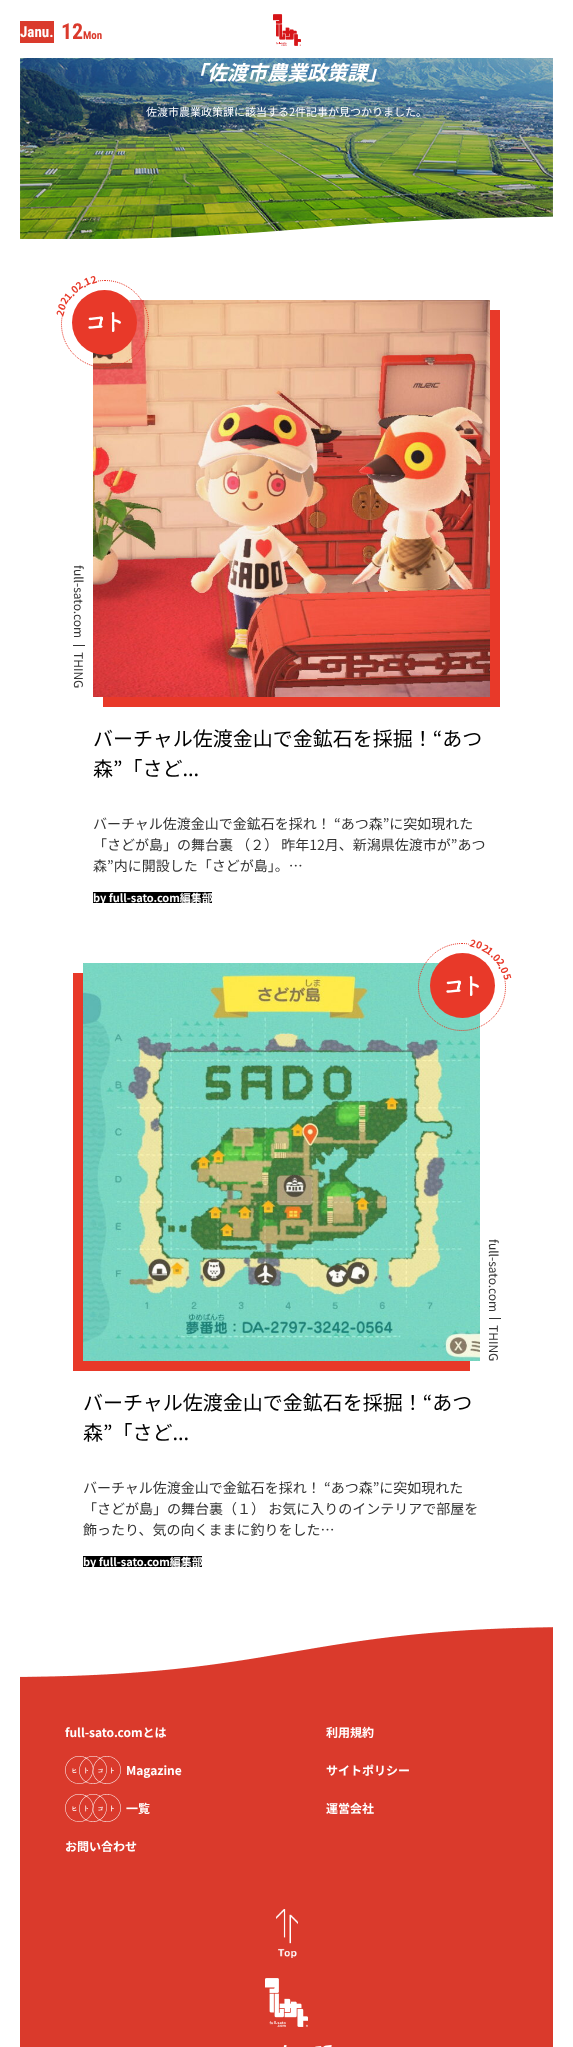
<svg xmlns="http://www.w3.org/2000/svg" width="573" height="2047">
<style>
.a{font:bold 15px Roboto Condensed;fill:#fff}
.b{font:bold 22px Roboto Condensed;fill:#da3a2c}
.c{font:bold 11px Roboto Condensed;fill:#da3a2c}
.d{font:italic bold 20px Noto Sans JP;fill:#fff}
.e{font:11px Noto Sans JP;fill:#fff}
.f{font:bold 10px Noto Sans JP;fill:#e83929}
.g{font:12px Noto Sans JP;fill:#333}
.h{font:20px Noto Sans JP;fill:#000}
.i{font:14px Noto Sans JP;fill:#333}
.j{font:bold 11px Noto Sans JP;fill:#fff}
.k{font:bold 12px Noto Sans JP;fill:#fff}
</style>
<rect width="100%" height="100%" fill="#fff"/>
<path fill="#da3a2c" d="M20 21h34v22H20z"/>
<image href="1.png" x="273" y="14" width="28" height="32"/>
<image href="2.png" x="20" y="58" width="533" height="181"/>
<image href="3.png" x="117" y="216" width="436" height="23"/>
<path fill="#e83929" d="M103 310h397v397H103z"/>
<image href="5.png" x="93" y="300" width="397" height="397"/>
<path fill="none" stroke="#e83929" stroke-dasharray="1 1" d="M105 280.5c24 0 43.5 19.5 43.5 43.5c0 24-19.5 43.5-43.5 43.5c-24 0-43.5-19.5-43.5-43.5c0-24 19.5-43.5 43.5-43.5z"/>
<circle fill="#e83929" cx="104.5" cy="322.5" r="32.5"/>
<image href="4.png" x="88" y="312" width="33" height="20"/>
<path fill="#fff" d="M45 305l41-41l14 14l-41 41z"/>
<path fill="#333" d="M73 645h12v1H73z"/>
<path fill="#000" d="M93 892h119v11H93z"/>
<path fill="#e83929" d="M73 973h397v398H73z"/>
<image href="6.png" x="83" y="963" width="397" height="398"/>
<path fill="none" stroke="#e83929" stroke-dasharray="1 1" d="M462 943.5c24 0 43.5 19.5 43.5 43.5c0 24-19.5 43.5-43.5 43.5c-24 0-43.5-19.5-43.5-43.5c0-24 19.5-43.5 43.5-43.5z"/>
<circle fill="#e83929" cx="462.5" cy="985.5" r="32.5"/>
<image href="4.png" x="446" y="976" width="33" height="20"/>
<path fill="#fff" d="M481 928l41 41l-14 14l-41-41z"/>
<path fill="#333" d="M489 1318h12v1H489z"/>
<path fill="#000" d="M83 1556h119v11H83z"/>
<image href="7.png" x="20" y="1627" width="533" height="50"/>
<path fill="#da3a2c" d="M20 1677h533v370H20z"/>
<image href="8.png" x="65" y="1756" width="56" height="28"/>
<image href="8.png" x="65" y="1794" width="56" height="28"/>
<image href="9.png" x="276" y="1909" width="22" height="49"/>
<image href="10.png" x="265" y="1978" width="43" height="49"/>
<image href="11.png" x="283" y="2045" width="49" height="2"/>
<text class="a" x="20" y="37">Janu.</text>
<text class="b" x="61" y="39">12</text>
<text class="c" x="83" y="39">Mon</text>
<text class="d" x="187" y="80">「佐渡市農業政策課」</text>
<text class="e" x="146" y="116">佐渡市農業政策課に該当する2件記事が見つかりました。</text>
<text class="f" x="75" y="294" transform="rotate(-42 75 294)">0</text>
<text class="f" x="79" y="290" transform="rotate(-35 79 290)">2</text>
<text class="f" x="86" y="286" transform="rotate(-24 86 286)">1</text>
<text class="f" x="92" y="284" transform="rotate(-17 92 284)">2</text>
<text class="f" x="84" y="288" transform="rotate(-29 84 288)">.</text>
<text class="f" x="66" y="305" transform="rotate(-59 66 305)">2</text>
<text class="f" x="69" y="301" transform="rotate(-52 69 301)">1</text>
<text class="f" x="73" y="297" transform="rotate(-46 73 297)">.</text>
<text class="f" x="64" y="311" transform="rotate(-66 64 311)">0</text>
<text class="f" x="63" y="317" transform="rotate(-73 63 317)">2</text>
<text class="g" x="74" y="565" transform="rotate(90 74 565)">full-sato.com</text>
<text class="g" x="74" y="652" transform="rotate(90 74 652)">THING</text>
<text class="h" x="93" y="746">バーチャル佐渡金山で金鉱石を採掘！“あつ</text>
<text class="h" x="93" y="776">森”「さど...</text>
<text class="i" x="93" y="829">バーチャル佐渡金山で金鉱石を採れ！ “あつ森”に突如現れた</text>
<text class="i" x="93" y="850">「さどが島」の舞台裏 （２） 昨年12月、新潟県佐渡市が”あつ</text>
<text class="i" x="93" y="871">森”内に開設した「さどが島」。…</text>
<text class="j" x="93" y="902">by full-sato.com編集部</text>
<text class="f" x="469" y="946" transform="rotate(17 469 946)">2</text>
<text class="f" x="475" y="947" transform="rotate(24 475 947)">0</text>
<text class="f" x="481" y="950" transform="rotate(31 481 950)">2</text>
<text class="f" x="485" y="952" transform="rotate(38 485 952)">1</text>
<text class="f" x="490" y="956" transform="rotate(44 490 956)">.</text>
<text class="f" x="492" y="958" transform="rotate(48 492 958)">0</text>
<text class="f" x="496" y="962" transform="rotate(55 496 962)">2</text>
<text class="f" x="498" y="967" transform="rotate(61 498 967)">.</text>
<text class="f" x="500" y="969" transform="rotate(66 500 969)">0</text>
<text class="f" x="503" y="975" transform="rotate(73 503 975)">5</text>
<text class="g" x="489" y="1239" transform="rotate(90 489 1239)">full-sato.com</text>
<text class="g" x="489" y="1325" transform="rotate(90 489 1325)">THING</text>
<text class="h" x="83" y="1410">バーチャル佐渡金山で金鉱石を採掘！“あつ</text>
<text class="h" x="83" y="1440">森”「さど...</text>
<text class="i" x="83" y="1493">バーチャル佐渡金山で金鉱石を採れ！ “あつ森”に突如現れた</text>
<text class="i" x="83" y="1514">「さどが島」の舞台裏（１） お気に入りのインテリアで部屋を</text>
<text class="i" x="83" y="1535">飾ったり、気の向くままに釣りをした…</text>
<text class="j" x="83" y="1566">by full-sato.com編集部</text>
<text class="k" x="65" y="1737">full-sato.comとは</text>
<text class="k" x="126" y="1775">Magazine</text>
<text class="k" x="126" y="1813">一覧</text>
<text class="k" x="65" y="1851">お問い合わせ</text>
<text class="k" x="326" y="1737">利用規約</text>
<text class="k" x="326" y="1775">サイトポリシー</text>
<text class="k" x="326" y="1813">運営会社</text>
</svg>
